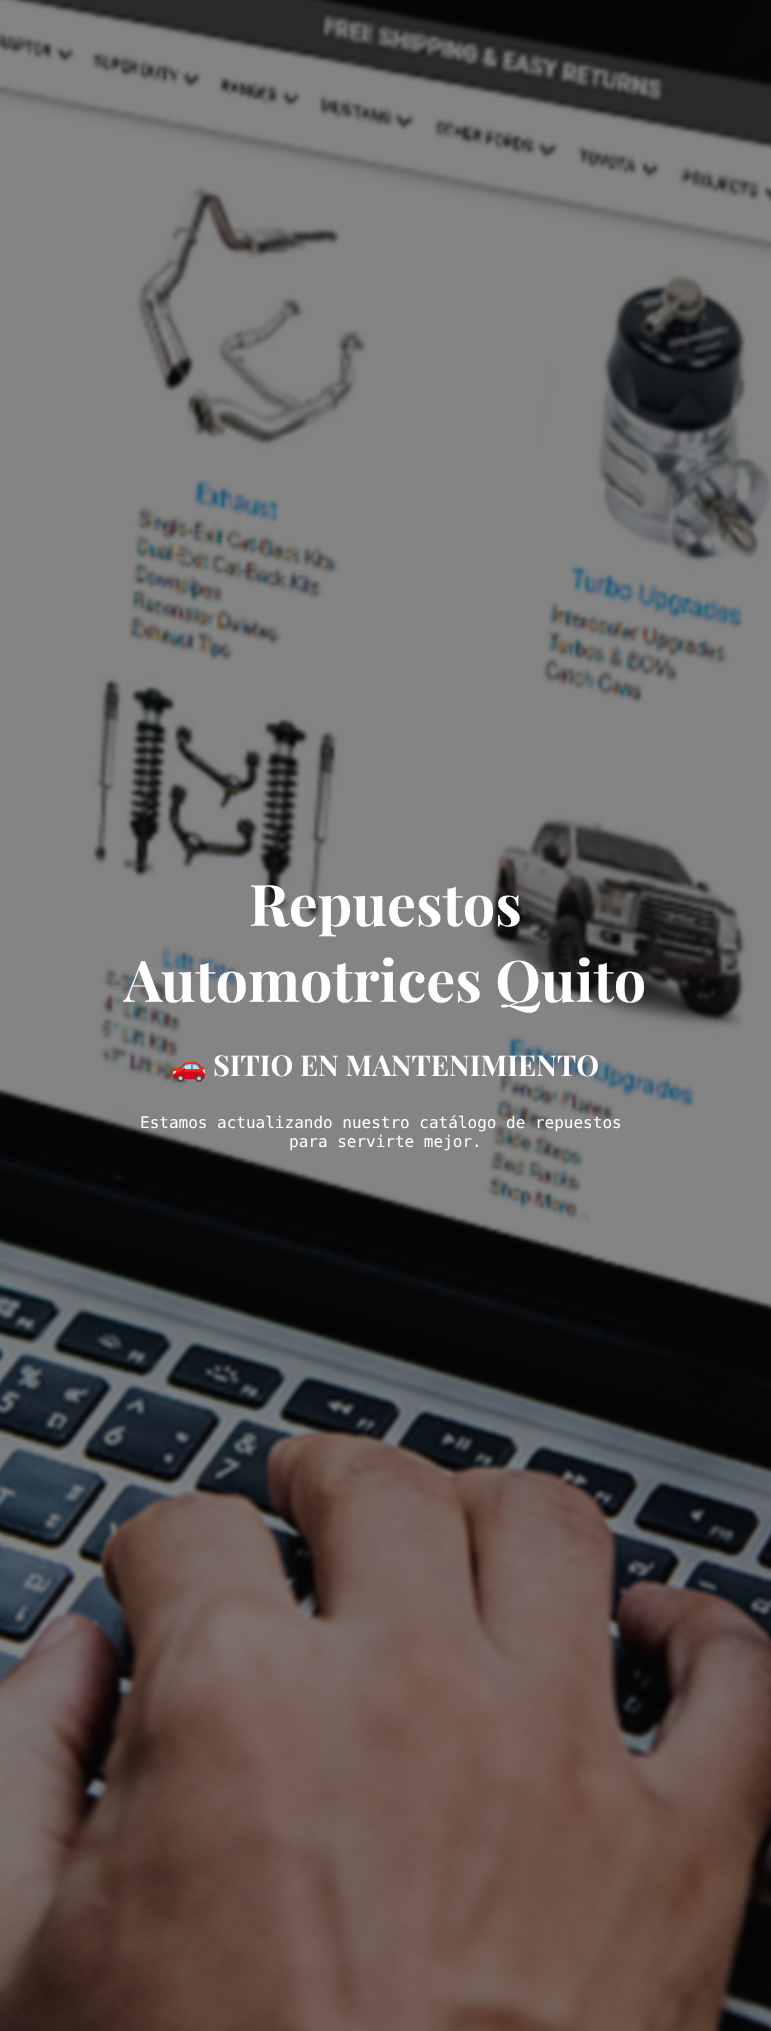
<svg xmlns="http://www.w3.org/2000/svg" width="771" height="2031">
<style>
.a{font:bold 57.5px Playfair Display;fill:#fff}
.b{font:bold 28.75px Noto Color Emoji;fill:#fff}
.c{font:bold 28.75px Playfair Display;fill:#fff}
.d{font:16px DejaVu Sans Mono;fill:#fff}
</style>
<rect width="100%" height="100%" fill="#fff"/>
<image href="1.png" x="0" y="0" width="771" height="2031"/>
<text class="a" x="249" y="926">Repuestos</text>
<text class="a" x="124" y="1002">Automotrices Quito</text>
<text class="b" x="171" y="1076">🚗</text>
<text class="c" x="213" y="1076">SITIO EN MANTENIMIENTO</text>
<text class="d" x="140" y="1128">Estamos actualizando nuestro catálogo de repuestos</text>
<text class="d" x="289" y="1147">para servirte mejor.</text>
</svg>
